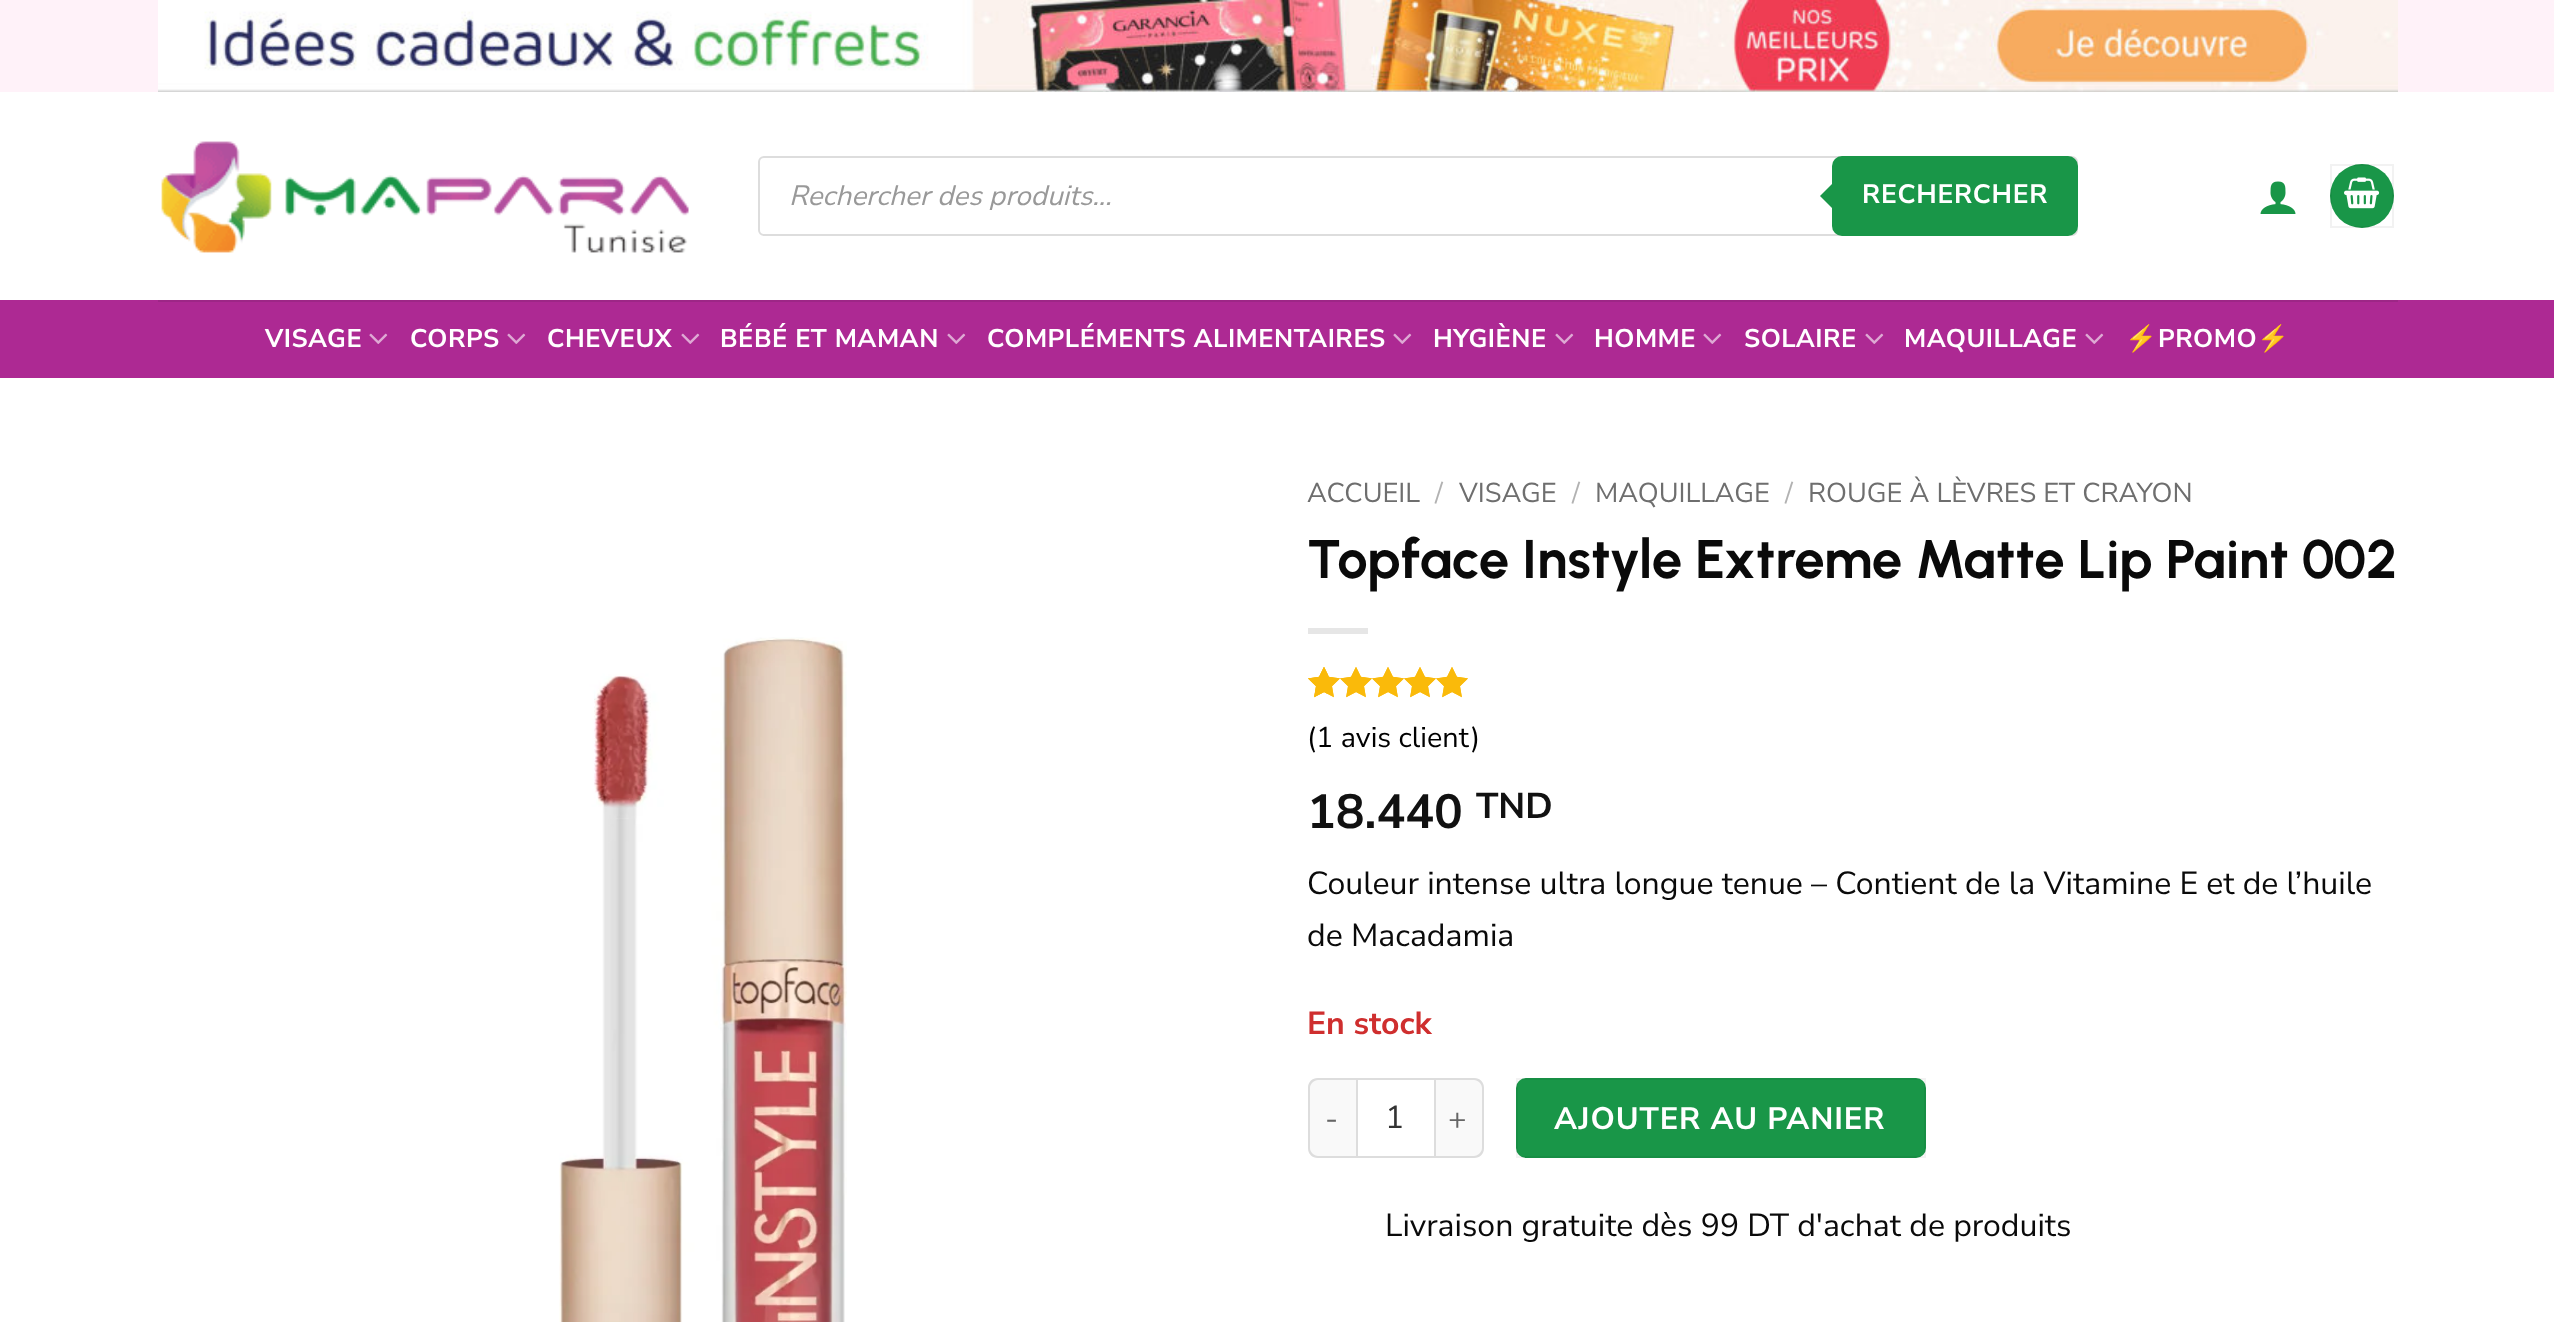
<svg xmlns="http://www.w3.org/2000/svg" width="2554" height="1322">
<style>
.a{font:italic 28px Nunito Sans;fill:#999}
.b{font:bold 26.5px Nunito Sans;letter-spacing:0.75px;fill:#fff}
.c{font:bold 25.6px Nunito Sans;letter-spacing:0.5px;fill:#fff}
.d{font:bold 25.6px Noto Color Emoji;letter-spacing:0.5px;fill:#fff}
.e{font:27.25px Nunito Sans;fill:#6e6e6e}
.f{font:27.25px Nunito Sans;fill:#b2b2b2}
.g{font:bold 54.4px Urbanist;fill:#0a0a0a}
.h{font:28.75px Nunito Sans;fill:#000}
.i{font:bold 48px Nunito Sans;fill:#111}
.j{font:bold 36px Nunito Sans;fill:#111}
.k{font:32px Nunito Sans;fill:#0a0a0a}
.l{font:bold 32px Nunito Sans;fill:#cf2e2e}
.m{font:31px Nunito Sans;letter-spacing:0.9px;fill:#666}
.n{font:32px Nunito Sans;fill:#333}
.o{font:bold 31px Nunito Sans;letter-spacing:0.9px;fill:#fff}
</style>
<rect width="100%" height="100%" fill="#fff"/>
<path fill="#fff2f9" d="M0 0h2554v92H0z"/>
<image href="1.png" x="158" y="0" width="2240" height="92"/>
<image href="2.png" x="161" y="141" width="528" height="112"/>
<rect fill="none" stroke="#ddd" stroke-width="2" x="759" y="157" width="1318" height="78" rx="5"/>
<rect fill="#199648" x="1832" y="156" width="246" height="80" rx="10"/>
<path fill="#199648" d="M1836 180v32l-16-16z"/>
<image href="3.png" x="2260" y="181" width="36" height="33"/>
<circle fill="#199648" cx="2362" cy="196" r="32"/>
<path fill="none" stroke="#0000000d" stroke-width="2" d="M2331 165h62v62H2331z"/>
<image href="4.png" x="2344" y="177" width="36" height="32"/>
<path fill="#ad2993" d="M0 300h2554v78H0z"/>
<path fill="#9d2686" d="M158 300h2240v2H158z"/>
<image href="5.png" x="369" y="333" width="19" height="11"/>
<image href="5.png" x="507" y="333" width="19" height="11"/>
<image href="5.png" x="681" y="333" width="19" height="11"/>
<image href="5.png" x="947" y="333" width="19" height="11"/>
<image href="5.png" x="1393" y="333" width="19" height="11"/>
<image href="5.png" x="1555" y="333" width="19" height="11"/>
<image href="5.png" x="1703" y="333" width="19" height="11"/>
<image href="5.png" x="1865" y="333" width="19" height="11"/>
<image href="5.png" x="2085" y="333" width="19" height="11"/>
<image href="6.png" x="559" y="637" width="288" height="685"/>
<path fill="#e6e6e6" d="M1308 628h60v6H1308z"/>
<image href="7.png" x="1308" y="667" width="160" height="31"/>
<image href="8.png" x="1308" y="667" width="160" height="31"/>
<image href="9.png" x="1308" y="667" width="20" height="31"/>
<path fill="#f9f9f9" d="M1318 1078h38v80h-38c-5.5 0-10-4.5-10-10v-60c0-5.5 4.5-10 10-10z"/>
<path fill="#ddd" fill-rule="evenodd" d="M1318 1078h38v80h-38c-6 0-10-4-10-10v-60c0-6 4-10 10-10zm0 2h38v76h-38c-4 0-8-4-8-8v-60c0-4 4-8 8-8z"/>
<path fill="none" stroke="#ddd" stroke-width="2" d="M1357 1079h78v78H1357z"/>
<path fill="#f9f9f9" d="M1436 1078h38c5.5 0 10 4.5 10 10v60c0 5.5-4.5 10-10 10h-38z"/>
<path fill="#ddd" fill-rule="evenodd" d="M1436 1078h38c6 0 10 4 10 10v60c0 6-4 10-10 10h-38zm0 2h38c4 0 8 4 8 8v60c0 4-4 8-8 8h-38z"/>
<rect fill="#199648" x="1516" y="1078" width="410" height="80" rx="10"/>
<path fill="none" stroke="#0000000d" stroke-width="2" d="M1517 1079h408v78H1517z"/>
<text class="a" x="789" y="205">Rechercher des produits...</text>
<text class="b" x="1862" y="203">RECHERCHER</text>
<text class="c" x="265" y="347">VISAGE</text>
<text class="c" x="410" y="347">CORPS</text>
<text class="c" x="547" y="347">CHEVEUX</text>
<text class="c" x="720" y="347">BÉBÉ ET MAMAN</text>
<text class="c" x="987" y="347">COMPLÉMENTS ALIMENTAIRES</text>
<text class="c" x="1433" y="347">HYGIÈNE</text>
<text class="c" x="1594" y="347">HOMME</text>
<text class="c" x="1744" y="347">SOLAIRE</text>
<text class="c" x="1904" y="347">MAQUILLAGE</text>
<text class="d" x="2125" y="347">⚡️</text>
<text class="c" x="2158" y="347">PROMO</text>
<text class="d" x="2257" y="347">⚡️</text>
<text class="e" x="1307" y="502">ACCUEIL</text>
<text class="f" x="1435" y="502">/</text>
<text class="e" x="1459" y="502">VISAGE</text>
<text class="f" x="1572" y="502">/</text>
<text class="e" x="1595" y="502">MAQUILLAGE</text>
<text class="f" x="1785" y="502">/</text>
<text class="e" x="1808" y="502">ROUGE À LÈVRES ET CRAYON</text>
<text class="g" x="1307" y="578">Topface Instyle Extreme Matte Lip Paint 002</text>
<text class="h" x="1307" y="747">(1 avis client)</text>
<text class="i" x="1307" y="828">18.440</text>
<text class="j" x="1476" y="818">TND</text>
<text class="k" x="1307" y="894">Couleur intense ultra longue tenue – Contient de la Vitamine E et de l’huile</text>
<text class="k" x="1307" y="946">de Macadamia</text>
<text class="l" x="1307" y="1034">En stock</text>
<text class="m" x="1325" y="1129">-</text>
<text class="n" x="1385" y="1128">1</text>
<text class="m" x="1448" y="1129">+</text>
<text class="o" x="1554" y="1129">AJOUTER AU PANIER</text>
<text class="k" x="1385" y="1236">Livraison gratuite dès 99 DT d'achat de produits</text>
</svg>
